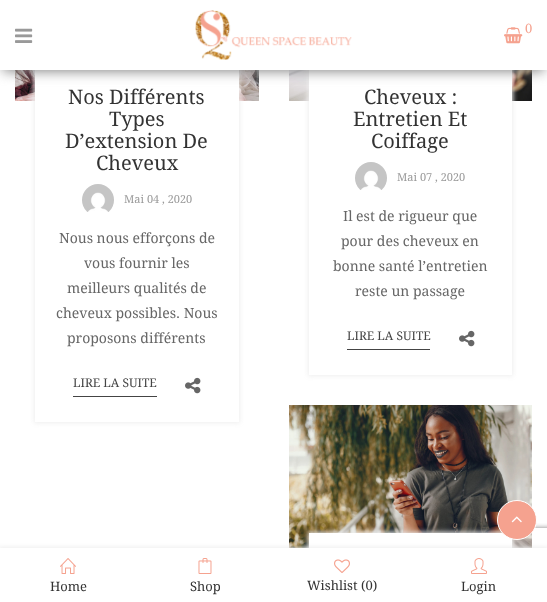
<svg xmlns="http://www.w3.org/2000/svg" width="547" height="602">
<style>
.a{font:13px Droid Serif;fill:#f5a28f}
.b{font:20px Droid Serif;fill:#333}
.c{font:11px Droid Serif;fill:#999}
.d{font:14px Droid Serif;fill:#666}
.e{font:12px Droid Serif;fill:#444}
.f{font:13px Droid Serif;fill:#333}
</style>
<defs>
<clipPath id="clip1"><path d="M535 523h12v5H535z"/></clipPath>
</defs>
<rect width="100%" height="100%" fill="#fff"/>
<image href="4.png" x="15" y="70" width="244" height="31"/>
<path fill="#eee" filter="blur(2.5px)" d="M34 65h206v358H34z"/>
<path fill="#fff" d="M35 70h204v352H35z"/>
<image href="7.png" x="289" y="70" width="243" height="31"/>
<path fill="#eee" filter="blur(2.5px)" d="M308 65h205v311H308z"/>
<path fill="#fff" d="M309 70h203v305H309z"/>
<path fill="#808080" filter="blur(6.5px)" d="M3 7h541v64H3z"/>
<path fill="#fff" d="M0 0h547v70H0z"/>
<image href="1.png" x="15" y="28" width="18" height="15"/>
<image href="2.png" x="195" y="10" width="157" height="50"/>
<image href="3.png" x="504" y="27" width="19" height="17"/>
<image href="5.png" x="82" y="184" width="32" height="28"/>
<path fill="#444" d="M73 396h84v1H73z"/>
<image href="6.png" x="185" y="377" width="16" height="17"/>
<image href="5.png" x="355" y="162" width="32" height="28"/>
<path fill="#444" d="M347 349h83v1H347z"/>
<image href="6.png" x="459" y="330" width="16" height="17"/>
<g clip-path="url(#clip1)">
<rect fill="#808080" filter="blur(2.5px)" x="477" y="528" width="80" height="60" rx="2"/>
</g>
<image href="8.png" x="289" y="405" width="243" height="143"/>
<path fill="#eee" filter="blur(2.5px)" d="M308 532h205v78H308z"/>
<path fill="#fff" d="M309 533h203v15H309z"/>
<circle fill="#f5a28f" stroke="#fff" cx="517" cy="520" r="19.5"/>
<image href="9.png" x="511" y="516" width="11" height="7"/>
<path fill="#eee" filter="blur(2px)" d="M-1 547h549v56H-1z"/>
<path fill="#fff" d="M0 548h547v54H0z"/>
<image href="10.png" x="60" y="558" width="16" height="16"/>
<image href="11.png" x="198" y="558" width="14" height="16"/>
<image href="12.png" x="334" y="559" width="16" height="14"/>
<image href="13.png" x="471" y="558" width="16" height="16"/>
<text class="a" x="525" y="33">0</text>
<text class="b" x="68" y="104">Nos Différents</text>
<text class="b" x="109" y="126">Types</text>
<text class="b" x="65" y="148">D’extension De</text>
<text class="b" x="96" y="170">Cheveux</text>
<text class="c" x="124" y="203">Mai 04 , 2020</text>
<text class="d" x="59" y="243">Nous nous efforçons de</text>
<text class="d" x="84" y="268">vous fournir les</text>
<text class="d" x="67" y="293">meilleurs qualités de</text>
<text class="d" x="56" y="318">cheveux possibles. Nous</text>
<text class="d" x="67" y="343">proposons différents</text>
<text class="e" x="73" y="387">LIRE LA SUITE</text>
<text class="b" x="364" y="104">Cheveux :</text>
<text class="b" x="353" y="126">Entretien Et</text>
<text class="b" x="371" y="148">Coiffage</text>
<text class="c" x="397" y="181">Mai 07 , 2020</text>
<text class="d" x="343" y="221">Il est de rigueur que</text>
<text class="d" x="341" y="246">pour des cheveux en</text>
<text class="d" x="333" y="271">bonne santé l’entretien</text>
<text class="d" x="355" y="296">reste un passage</text>
<text class="e" x="347" y="340">LIRE LA SUITE</text>
<text class="f" x="50" y="591">Home</text>
<text class="f" x="190" y="591">Shop</text>
<text class="f" x="307" y="590">Wishlist (0)</text>
<text class="f" x="461" y="591">Login</text>
</svg>
